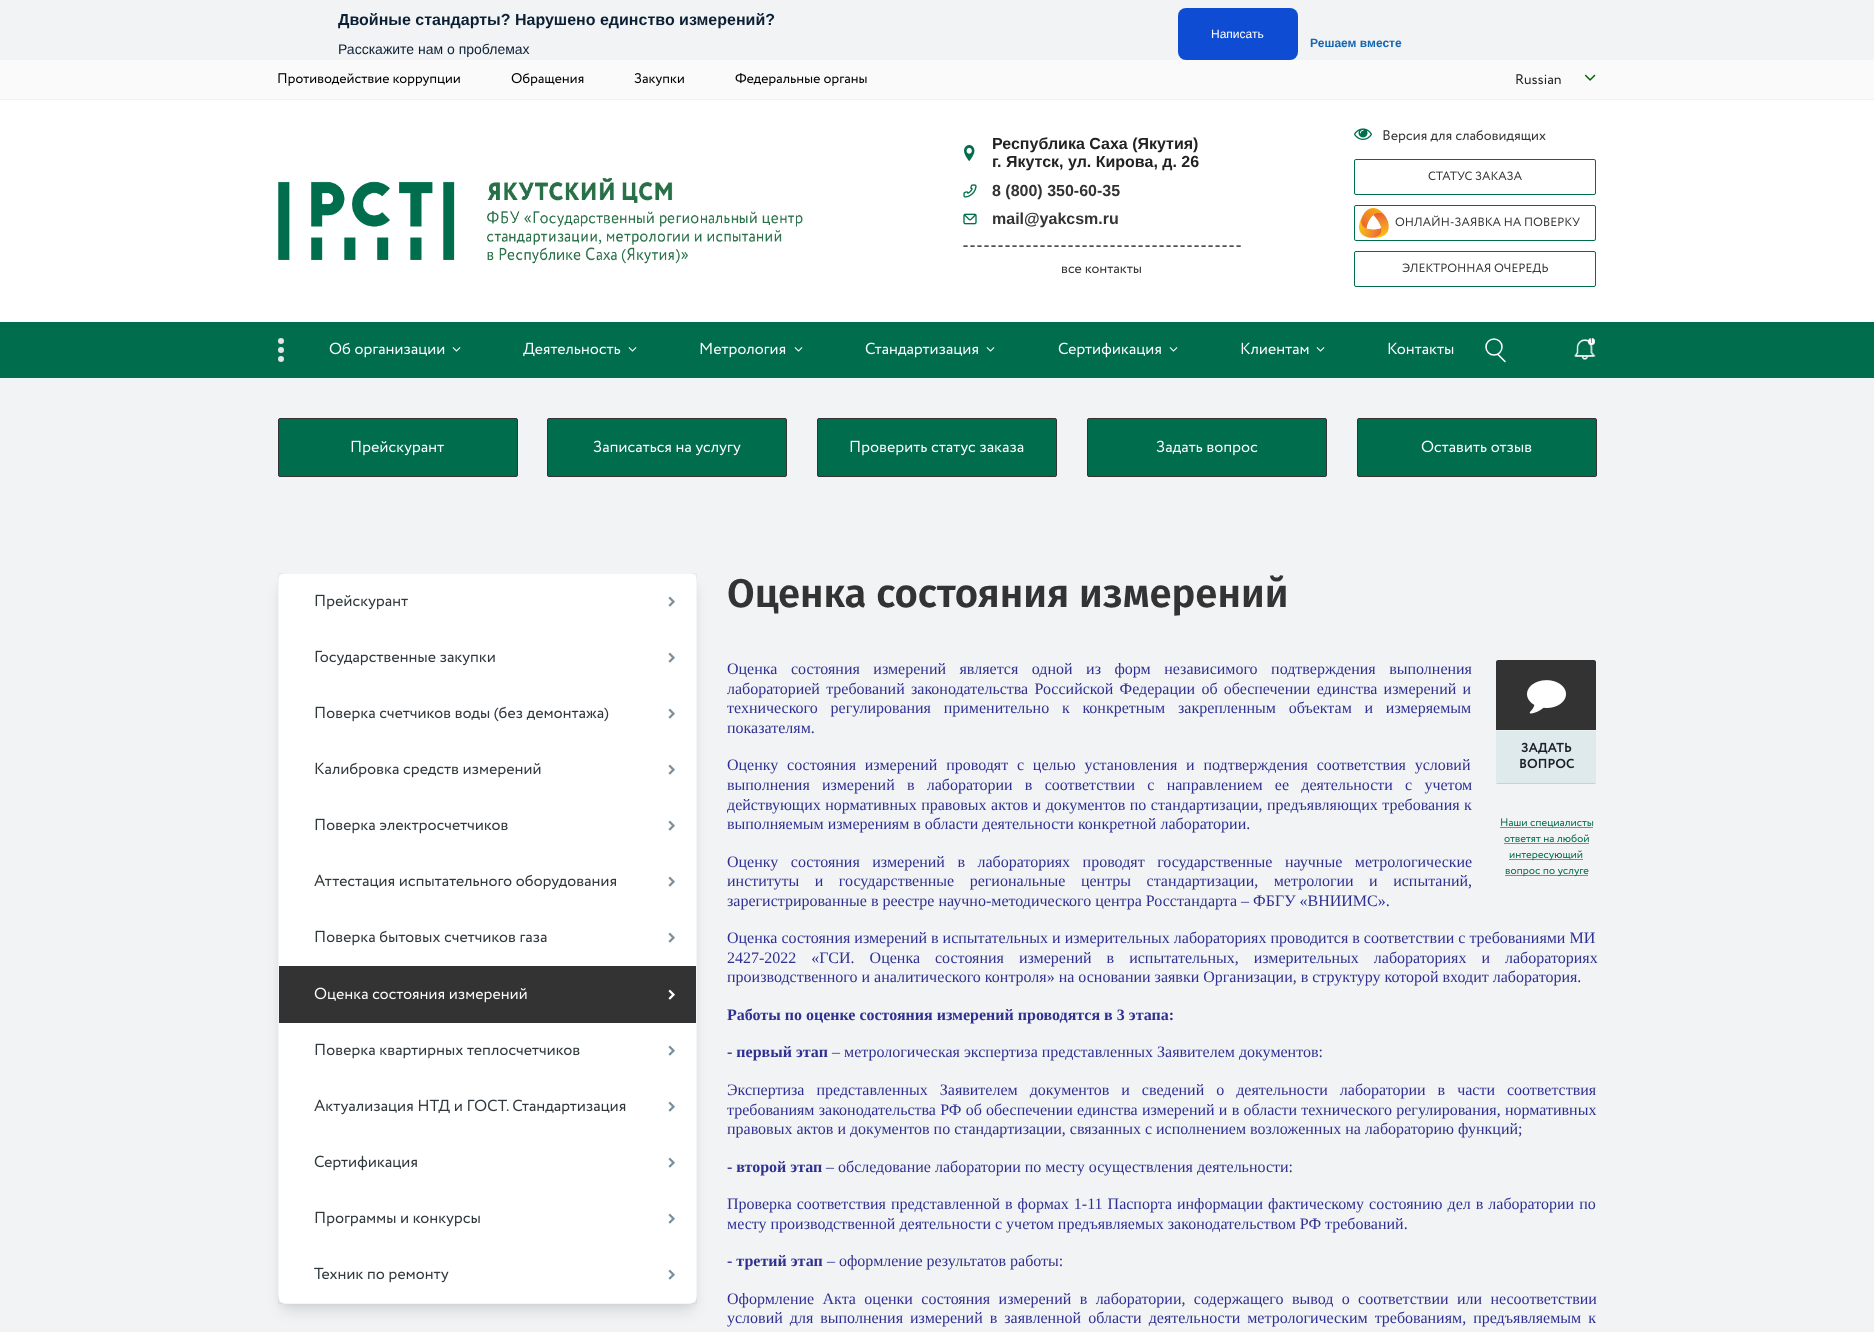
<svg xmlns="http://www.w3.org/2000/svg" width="1874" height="1332">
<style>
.a{font:bold 16px Liberation Sans;fill:#0b1f33}
.b{font:14px Liberation Sans;fill:#0b1f33}
.c{font:12px Liberation Sans;fill:#fff}
.d{font:bold 12px Liberation Sans;fill:#1666b0}
.e{font:bold 16px Liberation Sans;fill:#222}
.f{font:bold 16px Liberation Sans;fill:#333}
.g{font:600 40px Fira Sans;fill:#333}
.h{font:16px Liberation Serif;fill:#2f3192}
.i{font:bold 16px Liberation Serif;fill:#2f3192}
</style>
<rect width="100%" height="100%" fill="#f2f3f5"/>
<rect fill="#0d4cd3" x="1178" y="8" width="120" height="52" rx="8"/>
<path fill="#fff" d="M0 100h1874v222H0z"/>
<path fill="#fafafa" d="M0 60h1874v39H0z"/>
<path fill="#f1f1f1" d="M0 99h1874v1H0z"/>
<image href="1.png" x="278" y="73" width="182" height="13"/>
<image href="2.png" x="511" y="73" width="73" height="13"/>
<image href="3.png" x="634" y="73" width="50" height="13"/>
<image href="4.png" x="735" y="73" width="132" height="13"/>
<image href="5.png" x="278" y="178" width="530" height="86"/>
<image href="6.png" x="964" y="145" width="11" height="16"/>
<image href="7.png" x="963" y="184" width="14" height="14"/>
<image href="8.png" x="963" y="213" width="14" height="12"/>
<image href="9.png" x="963" y="245" width="278" height="2"/>
<image href="10.png" x="1062" y="266" width="79" height="8"/>
<image href="11.png" x="1516" y="74" width="45" height="11"/>
<image href="12.png" x="1584" y="74" width="12" height="7"/>
<image href="13.png" x="1354" y="128" width="18" height="12"/>
<image href="14.png" x="1383" y="130" width="163" height="13"/>
<rect fill="none" stroke="#006e4c" x="1354.5" y="159.5" width="241" height="35" rx="1.5"/>
<image href="15.png" x="1428" y="171" width="94" height="10"/>
<rect fill="none" stroke="#006e4c" x="1354.5" y="205.5" width="241" height="35" rx="1.5"/>
<image href="16.png" x="1395" y="215" width="185" height="12"/>
<image href="17.png" x="1359" y="208" width="30" height="30"/>
<rect fill="none" stroke="#006e4c" x="1354.5" y="251.5" width="241" height="35" rx="1.5"/>
<image href="18.png" x="1402" y="263" width="146" height="11"/>
<path fill="#006e4c" d="M0 322h1874v56H0z"/>
<circle fill="#e4e5e7" cx="281" cy="341" r="3"/>
<circle fill="#e4e5e7" cx="281" cy="350" r="3"/>
<circle fill="#e4e5e7" cx="281" cy="359" r="3"/>
<image href="19.png" x="329" y="342" width="116" height="16"/>
<image href="20.png" x="452" y="347" width="9" height="5"/>
<image href="21.png" x="523" y="342" width="98" height="15"/>
<image href="20.png" x="628" y="347" width="9" height="5"/>
<image href="22.png" x="700" y="342" width="86" height="16"/>
<image href="20.png" x="794" y="347" width="9" height="5"/>
<image href="23.png" x="865" y="342" width="113" height="16"/>
<image href="20.png" x="986" y="347" width="9" height="5"/>
<image href="24.png" x="1058" y="342" width="103" height="16"/>
<image href="20.png" x="1169" y="347" width="9" height="5"/>
<image href="25.png" x="1241" y="342" width="68" height="13"/>
<image href="20.png" x="1316" y="347" width="9" height="5"/>
<image href="26.png" x="1388" y="342" width="66" height="13"/>
<circle fill="none" stroke="#fff" stroke-width="1.5" cx="1494" cy="347" r="8"/>
<path fill="none" stroke="#fff" stroke-width="1.5" stroke-linecap="round" d="M1498 354.5l7 7"/>
<image href="28.png" x="1574" y="339" width="22" height="21"/>
<circle fill="#fff" cx="1591.5" cy="341.5" r="3.5"/>
<image href="27.png" x="1590" y="338" width="2" height="5"/>
<rect fill="#006e4c" stroke="#333" x="278.5" y="418.5" width="239" height="58" rx="1.5"/>
<image href="29.png" x="351" y="440" width="93" height="16"/>
<rect fill="#006e4c" stroke="#333" x="547.5" y="418.5" width="239" height="58" rx="1.5"/>
<image href="30.png" x="593" y="440" width="148" height="16"/>
<rect fill="#006e4c" stroke="#333" x="817.5" y="418.5" width="239" height="58" rx="1.5"/>
<image href="31.png" x="850" y="440" width="174" height="16"/>
<rect fill="#006e4c" stroke="#333" x="1087.5" y="418.5" width="239" height="58" rx="1.5"/>
<image href="32.png" x="1156" y="440" width="102" height="16"/>
<rect fill="#006e4c" stroke="#333" x="1357.5" y="418.5" width="239" height="58" rx="1.5"/>
<image href="33.png" x="1421" y="440" width="111" height="13"/>
<rect fill="#0000000d" filter="blur(3px)" x="280" y="579" width="415" height="727" rx="6"/>
<rect fill="#0000001a" filter="blur(7.5px)" x="281" y="586" width="413" height="725" rx="5"/>
<rect fill="#fff" x="278" y="573" width="419" height="731" rx="8"/>
<path fill="none" stroke="#0000000a" d="M278.5 573.5h418v730H278.5z"/>
<image href="34.png" x="315" y="594" width="93" height="16"/>
<image href="35.png" x="668" y="596" width="7" height="11"/>
<image href="36.png" x="315" y="650" width="180" height="16"/>
<image href="35.png" x="668" y="652" width="7" height="11"/>
<image href="37.png" x="315" y="706" width="294" height="16"/>
<image href="35.png" x="668" y="708" width="7" height="11"/>
<image href="38.png" x="315" y="762" width="226" height="16"/>
<image href="35.png" x="668" y="764" width="7" height="11"/>
<image href="39.png" x="315" y="818" width="193" height="16"/>
<image href="35.png" x="668" y="820" width="7" height="11"/>
<image href="40.png" x="314" y="874" width="302" height="16"/>
<image href="35.png" x="668" y="876" width="7" height="11"/>
<image href="41.png" x="315" y="930" width="232" height="16"/>
<image href="35.png" x="668" y="932" width="7" height="11"/>
<path fill="#333" d="M279 966h417v57H279z"/>
<image href="42.png" x="314" y="987" width="213" height="16"/>
<image href="43.png" x="668" y="989" width="7" height="11"/>
<image href="44.png" x="315" y="1043" width="265" height="16"/>
<image href="35.png" x="668" y="1045" width="7" height="11"/>
<image href="45.png" x="314" y="1099" width="312" height="16"/>
<image href="35.png" x="668" y="1101" width="7" height="11"/>
<image href="46.png" x="314" y="1155" width="103" height="16"/>
<image href="35.png" x="668" y="1157" width="7" height="11"/>
<image href="47.png" x="315" y="1211" width="165" height="16"/>
<image href="35.png" x="668" y="1213" width="7" height="11"/>
<image href="48.png" x="314" y="1267" width="135" height="16"/>
<image href="35.png" x="668" y="1269" width="7" height="11"/>
<path fill="#333" d="M1498 660h96c1 0 2 1 2 2v68h-100v-68c0-1 1-2 2-2z"/>
<image href="49.png" x="1527" y="680" width="39" height="34"/>
<path fill="#dfeaed" d="M1496 730h100v52c0 1-1 2-2 2h-96c-1 0-2-1-2-2z"/>
<path fill="#eaf1f3" d="M1496 730h100v1H1496z"/>
<path fill="#c8d2d5" d="M1596 783l-1 1h-98l-1-1z"/>
<image href="50.png" x="1521" y="742" width="51" height="12"/>
<image href="51.png" x="1520" y="758" width="55" height="11"/>
<path fill="#888" d="M1500 827h93v1H1500z"/>
<image href="52.png" x="1501" y="818" width="93" height="10"/>
<image href="53.png" x="1504" y="834" width="85" height="9"/>
<path fill="#888" d="M1504 843h85v1H1504z"/>
<path fill="#888" d="M1509 859h74v1H1509z"/>
<image href="54.png" x="1509" y="850" width="74" height="11"/>
<path fill="#888" d="M1505 875h83v1H1505z"/>
<image href="55.png" x="1505" y="869" width="84" height="8"/>
<text class="a" x="338" y="25">Двойные стандарты? Нарушено единство измерений?</text>
<text class="b" x="338" y="54">Расскажите нам о проблемах</text>
<text class="c" x="1211" y="38">Написать</text>
<text class="d" x="1310" y="47">Решаем вместе</text>
<text class="e" x="992" y="149">Республика Саха (Якутия)</text>
<text class="e" x="992" y="167">г. Якутск, ул. Кирова, д. 26</text>
<text class="f" x="992" y="196">8 (800) 350-60-35</text>
<text class="f" x="992" y="224">mail@yakcsm.ru</text>
<text class="g" x="727" y="607">Оценка состояния измерений</text>
<text class="h" x="727" y="674" word-spacing="9.5">Оценка состояния измерений является одной из форм независимого подтверждения выполнения</text>
<text class="h" x="727" y="694" word-spacing="2.25">лабораторией требований законодательства Российской Федерации об обеспечении единства измерений и</text>
<text class="h" x="727" y="713" word-spacing="8.75">технического регулирования применительно к конкретным закрепленным объектам и измеряемым</text>
<text class="h" x="727" y="733">показателям.</text>
<text class="h" x="727" y="770" word-spacing="4.75">Оценку состояния измерений проводят с целью установления и подтверждения соответствия условий</text>
<text class="h" x="727" y="790" word-spacing="8.25">выполнения измерений в лаборатории в соответствии с направлением ее деятельности с учетом</text>
<text class="h" x="727" y="810" word-spacing="0.5">действующих нормативных правовых актов и документов по стандартизации, предъявляющих требования к</text>
<text class="h" x="727" y="829">выполняемым измерениям в области деятельности конкретной лаборатории.</text>
<text class="h" x="727" y="867" word-spacing="8.5">Оценку состояния измерений в лабораториях проводят государственные научные метрологические</text>
<text class="h" x="727" y="886" word-spacing="11.5">институты и государственные региональные центры стандартизации, метрологии и испытаний,</text>
<text class="h" x="727" y="906">зарегистрированные в реестре научно-методического центра Росстандарта – ФБГУ «ВНИИМС».</text>
<text class="h" x="727" y="943">Оценка состояния измерений в испытательных и измерительных лабораториях проводится в соответствии с требованиями МИ</text>
<text class="h" x="727" y="963" word-spacing="11">2427-2022 «ГСИ. Оценка состояния измерений в испытательных, измерительных лабораториях и лабораториях</text>
<text class="h" x="727" y="982">производственного и аналитического контроля» на основании заявки Организации, в структуру которой входит лаборатория.</text>
<text class="i" x="727" y="1020">Работы по оценке состояния измерений проводятся в 3 этапа:</text>
<text class="i" x="727" y="1057">- первый этап</text>
<text class="h" x="832" y="1057">– метрологическая экспертиза представленных Заявителем документов:</text>
<text class="h" x="727" y="1095" word-spacing="8">Экспертиза представленных Заявителем документов и сведений о деятельности лаборатории в части соответствия</text>
<text class="h" x="727" y="1115" word-spacing="0.25">требованиям законодательства РФ об обеспечении единства измерений и в области технического регулирования, нормативных</text>
<text class="h" x="727" y="1134">правовых актов и документов по стандартизации, связанных с исполнением возложенных на лабораторию функций;</text>
<text class="i" x="727" y="1172">- второй этап</text>
<text class="h" x="826" y="1172">– обследование лаборатории по месту осуществления деятельности:</text>
<text class="h" x="727" y="1209" word-spacing="1">Проверка соответствия представленной в формах 1-11 Паспорта информации фактическому состоянию дел в лаборатории по</text>
<text class="h" x="727" y="1229">месту производственной деятельности с учетом предъявляемых законодательством РФ требований.</text>
<text class="i" x="727" y="1266">- третий этап</text>
<text class="h" x="827" y="1266">– оформление результатов работы:</text>
<text class="h" x="727" y="1304" word-spacing="4.4">Оформление Акта оценки состояния измерений в лаборатории, содержащего вывод о соответствии или несоответствии</text>
<text class="h" x="727" y="1323" word-spacing="3">условий для выполнения измерений в заявленной области деятельности метрологическим требованиям, предъявляемым к</text>
</svg>
